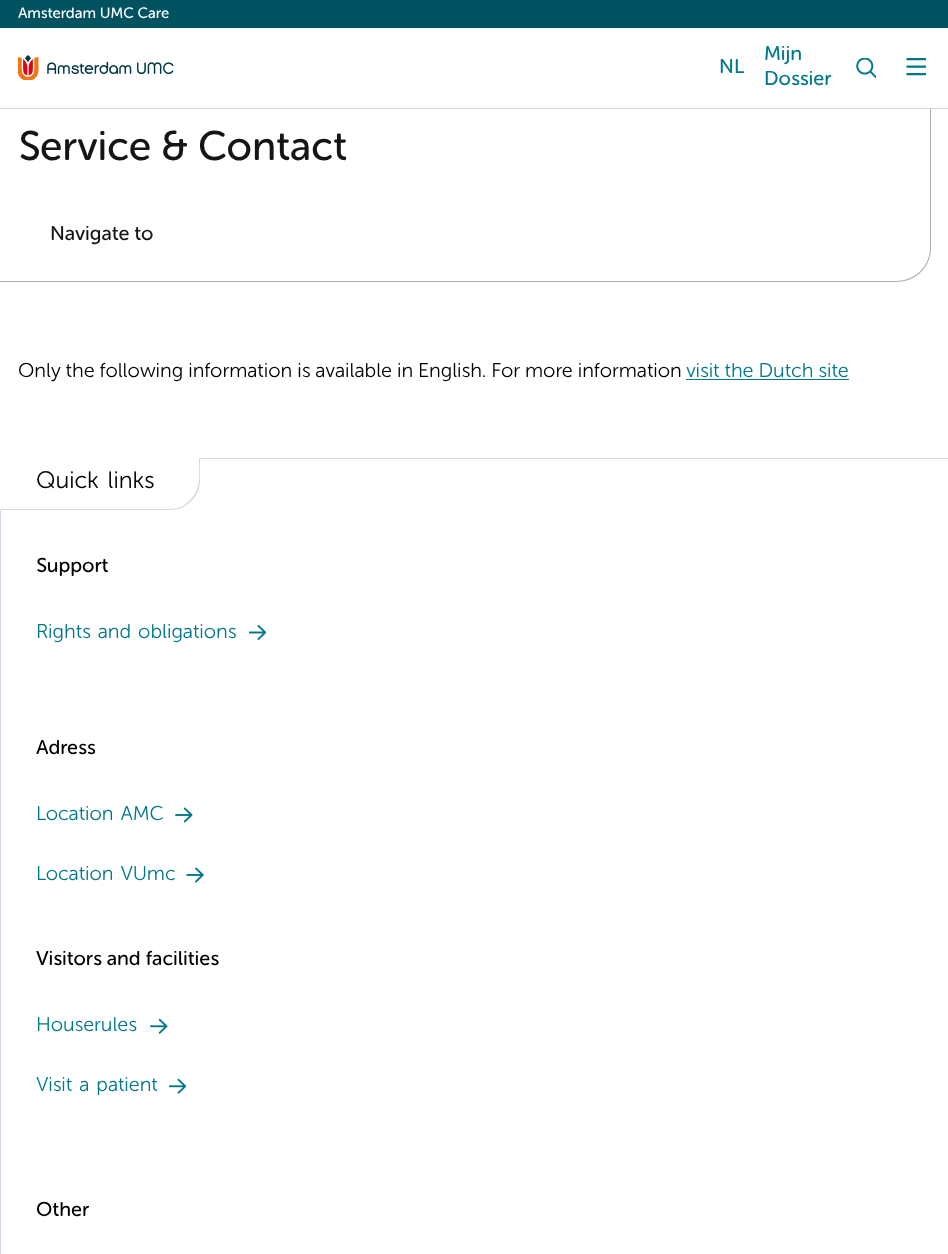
<svg xmlns="http://www.w3.org/2000/svg" width="948" height="1254">
<style>
.a{font:15px 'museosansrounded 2';fill:#fff}
.b{font:20px 'museosansrounded 2';fill:#00778a}
.c{font:41px 'museosansrounded 2';fill:#131516}
.d{font:20px 'museosansrounded 2';fill:#131516}
.e{font:20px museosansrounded;fill:#000}
.f{font:20px museosansrounded;fill:#00778a}
.g{font:23.75px museosansrounded;fill:#000}
.h{font:20px 'museosansrounded 2';fill:#000}
</style>
<rect width="100%" height="100%" fill="#fff"/>
<path fill="#ced9e5" d="M0 108h948v1H0z"/>
<path fill="#005261" d="M0 0h948v28H0z"/>
<image href="1.png" x="906" y="58" width="20" height="18"/>
<image href="2.png" x="18" y="55" width="156" height="25"/>
<image href="3.png" x="856" y="58" width="20" height="20"/>
<path fill="#acaeaf" fill-rule="evenodd" d="M0 220h931v28c0 19-15 34-35 34h-896zm0 0h930v28c0 18-15 33-34 33h-896z"/>
<path fill="#acaeaf" d="M930 109h1v111H930z"/>
<path fill="#00778a" d="M686 379h163v1H686z"/>
<path fill="none" stroke="#ced9e5" d="M0.5 458.5h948v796H0.5z"/>
<path fill="#fff" d="M0 458h200v22c0 16.5-13.5 30-30 30h-170z"/>
<path fill="#ced9e5" d="M200 480v-22l-2 1h1c0 14 3 30-9 41l1 1c6-5 9-13 9-21z"/>
<path fill="#ced9e5" d="M170 510c8 0 16-3 21-9l-1-1c-5 6-12 9-20 9h-169l-1 1z"/>
<path fill="#fff" d="M1 459h1l-2-1v52l1-1z"/>
<image href="4.png" x="249" y="625" width="17" height="15"/>
<image href="5.png" x="175" y="807" width="18" height="16"/>
<image href="6.png" x="186" y="867" width="18" height="16"/>
<image href="7.png" x="150" y="1018" width="18" height="16"/>
<image href="8.png" x="169" y="1078" width="17" height="16"/>
<text class="a" x="18" y="18">Amsterdam UMC Care</text>
<text class="b" x="719" y="73">NL</text>
<text class="b" x="764" y="60">Mijn</text>
<text class="b" x="764" y="85">Dossier</text>
<text class="c" x="18" y="160">Service &amp; Contact</text>
<text class="d" x="50" y="240">Navigate to</text>
<text class="e" x="18" y="377">Only the following information is available in English. For more information</text>
<text class="f" x="686" y="377">visit the Dutch site</text>
<text class="g" x="36" y="488" word-spacing="3">Quick links</text>
<text class="h" x="36" y="572">Support</text>
<text class="f" x="36" y="638" word-spacing="2">Rights and obligations</text>
<text class="h" x="36" y="754">Adress</text>
<text class="f" x="36" y="820" word-spacing="2">Location AMC</text>
<text class="f" x="36" y="880" word-spacing="2">Location VUmc</text>
<text class="h" x="36" y="965">Visitors and facilities</text>
<text class="f" x="36" y="1031">Houserules</text>
<text class="f" x="36" y="1091" word-spacing="2">Visit a patient</text>
<text class="h" x="36" y="1216">Other</text>
</svg>
